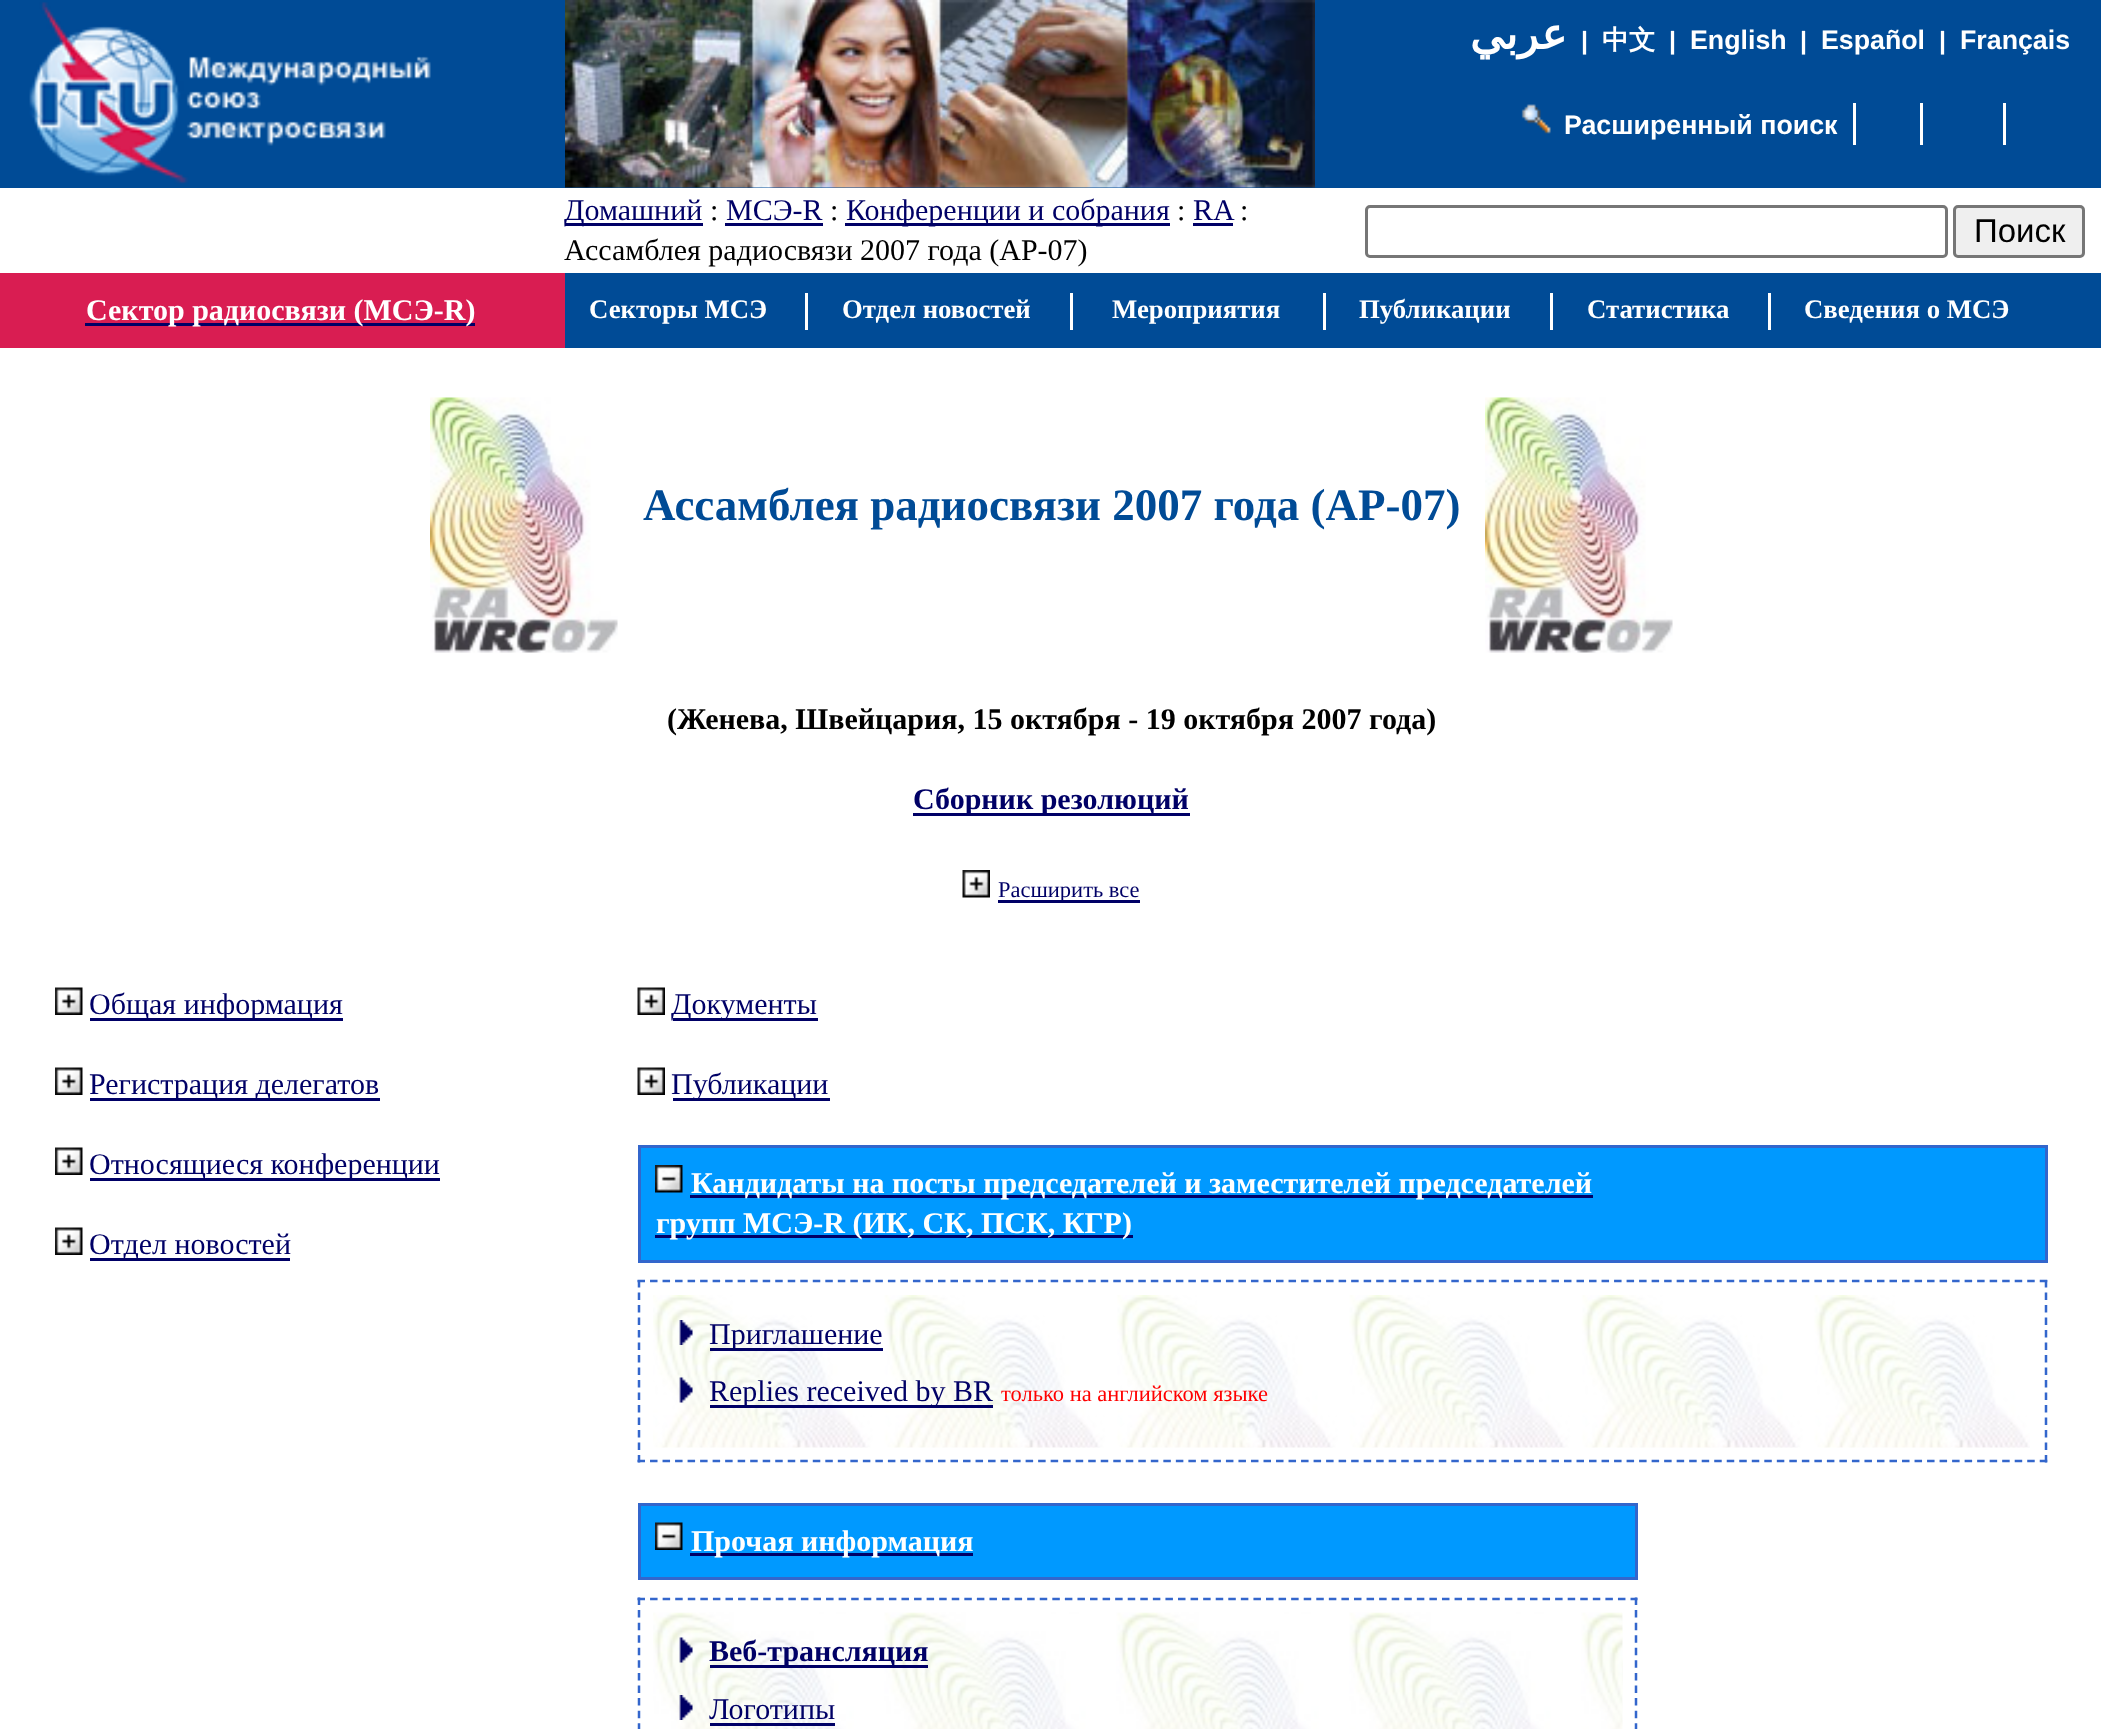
<svg xmlns="http://www.w3.org/2000/svg" width="2101" height="1729">
<style>
.a{font:bold 43px DejaVu Sans;direction:rtl;fill:#fff}
.b{font:bold 25px Liberation Sans;fill:#fff}
.c{font:bold 26.75px WenQuanYi Zen Hei;fill:#fff}
.d{font:bold 26.75px Liberation Sans;fill:#fff}
.e{font:30px Liberation Serif;fill:#006}
.f{font:30px Liberation Serif;fill:#000}
.g{font:33px Liberation Sans;fill:#000}
.h{font:bold 30px Liberation Serif;fill:#fff}
.i{font:bold 45px Liberation Serif;fill:#004b96}
.j{font:bold 30px Liberation Serif;fill:#000}
.k{font:bold 30px Liberation Serif;fill:#006}
.l{font:22.5px Liberation Serif;fill:#006}
.m{font:22.5px Liberation Serif;fill:#f00}
.n{font:bold 26.75px Liberation Serif;fill:#fff}
</style>
<rect width="100%" height="100%" fill="#fff"/>
<path fill="#004b96" d="M0 0h2101v188H0z"/>
<image href="1.png" x="29" y="2" width="402" height="182"/>
<image href="2.png" x="565" y="0" width="750" height="188"/>
<path fill="#fff" d="M1853 103h3v42H1853z"/>
<image href="3.png" x="1521" y="104" width="30" height="30"/>
<path fill="#fff" d="M1920 103h3v42H1920z"/>
<path fill="#fff" d="M2003 103h3v42H2003z"/>
<path fill="#006" d="M565 223h138v3H565z"/>
<path fill="#006" d="M725 223h98v3H725z"/>
<path fill="#006" d="M845 223h325v3H845z"/>
<path fill="#006" d="M1193 223h40v3H1193z"/>
<rect fill="none" stroke="#767676" stroke-width="3" x="1366.5" y="206.5" width="580" height="50" rx="3.5"/>
<rect fill="#efefef" stroke="#767676" stroke-width="3" x="1954.5" y="206.5" width="129" height="50" rx="3.5"/>
<path fill="#d91d52" d="M0 273h565v75H0z"/>
<path fill="#006" d="M85 323h390v3H85z"/>
<path fill="#004b96" d="M565 273h1536v75H565z"/>
<image href="4.png" x="430" y="397" width="188" height="256"/>
<image href="5.png" x="1485" y="397" width="188" height="256"/>
<path fill="#006" d="M913 813h277v3H913z"/>
<image href="6.png" x="962" y="870" width="28" height="28"/>
<path fill="#006" d="M998 900h142v3H998z"/>
<image href="7.png" x="55" y="987" width="28" height="28"/>
<path fill="#006" d="M90 1018h253v3H90z"/>
<image href="7.png" x="55" y="1067" width="28" height="28"/>
<path fill="#006" d="M90 1098h290v3H90z"/>
<image href="7.png" x="55" y="1147" width="28" height="28"/>
<path fill="#006" d="M90 1178h350v3H90z"/>
<image href="7.png" x="55" y="1227" width="28" height="28"/>
<path fill="#006" d="M90 1258h200v3H90z"/>
<image href="8.png" x="637" y="987" width="28" height="28"/>
<path fill="#006" d="M673 1018h145v3H673z"/>
<image href="8.png" x="637" y="1067" width="28" height="28"/>
<path fill="#006" d="M673 1098h157v3H673z"/>
<path fill="#09f" stroke="#36c" stroke-width="3" d="M639.5 1146.5h1407v115H639.5z"/>
<image href="9.png" x="655" y="1165" width="28" height="28"/>
<path fill="#006" d="M690 1195h903v3H690z"/>
<path fill="#006" d="M655 1235h478v3H655z"/>
<path fill="none" stroke="#36c" stroke-width="2.5" stroke-dasharray="7.5 5.02" d="M637.5 1281h1410"/>
<path fill="none" stroke="#36c" stroke-width="2.5" stroke-dasharray="7.5 5" d="M2046 1280v182.5"/>
<path fill="none" stroke="#36c" stroke-width="2.5" stroke-dasharray="7.5 5.02" d="M637.5 1461h1410"/>
<path fill="none" stroke="#36c" stroke-width="2.5" stroke-dasharray="7.5 5" d="M639 1280v182.5"/>
<image href="10.png" x="653" y="1295" width="1377" height="153"/>
<image href="11.png" x="679" y="1320" width="14" height="25"/>
<path fill="#006" d="M710 1348h173v3H710z"/>
<image href="12.png" x="679" y="1377" width="14" height="26"/>
<path fill="#006" d="M710 1405h283v3H710z"/>
<path fill="#09f" stroke="#36c" stroke-width="3" d="M639.5 1504.5h997v74H639.5z"/>
<image href="13.png" x="655" y="1522" width="28" height="28"/>
<path fill="#006" d="M690 1553h283v3H690z"/>
<path fill="none" stroke="#36c" stroke-width="2.5" stroke-dasharray="7.5 5.07" d="M637.5 1599h1000"/>
<path fill="none" stroke="#36c" stroke-width="2.5" stroke-dasharray="7.5 5.07" d="M1636 1597.5v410"/>
<path fill="none" stroke="#36c" stroke-width="2.5" stroke-dasharray="7.5 5.07" d="M639 1597.5v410"/>
<image href="14.png" x="653" y="1612" width="970" height="117"/>
<image href="15.png" x="679" y="1637" width="14" height="26"/>
<path fill="#006" d="M710 1665h218v3H710z"/>
<image href="16.png" x="679" y="1695" width="14" height="25"/>
<path fill="#006" d="M710 1723h125v3H710z"/>
<path fill="#fff" d="M805 293h3v37H805z"/>
<path fill="#fff" d="M1070 293h3v37H1070z"/>
<path fill="#fff" d="M1323 293h3v37H1323z"/>
<path fill="#fff" d="M1550 293h3v37H1550z"/>
<path fill="#fff" d="M1768 293h3v37H1768z"/>
<text class="a" x="1567" y="49">عربي</text>
<text class="b" x="1581" y="49">|</text>
<text class="c" x="1602" y="49">中文</text>
<text class="b" x="1669" y="49">|</text>
<text class="d" x="1690" y="49">English</text>
<text class="b" x="1800" y="49">|</text>
<text class="d" x="1821" y="49">Español</text>
<text class="b" x="1939" y="49">|</text>
<text class="d" x="1960" y="49">Français</text>
<text class="d" x="1564" y="134">Расширенный поиск</text>
<text class="e" x="564" y="220">Домашний</text>
<text class="f" x="710" y="220">:</text>
<text class="e" x="726" y="220">МСЭ-R</text>
<text class="f" x="830" y="220">:</text>
<text class="e" x="846" y="220">Конференции и собрания</text>
<text class="f" x="1177" y="220">:</text>
<text class="e" x="1193" y="220">RA</text>
<text class="f" x="1240" y="220">:</text>
<text class="f" x="564" y="260">Ассамблея радиосвязи 2007 года (АР-07)</text>
<text class="g" x="1974" y="242">Поиск</text>
<text class="h" x="86" y="320">Сектор радиосвязи (МСЭ-R)</text>
<text class="i" x="643" y="520">Ассамблея радиосвязи 2007 года (АР-07)</text>
<text class="j" x="667" y="729">(Женева, Швейцария, 15 октября - 19 октября 2007 года)</text>
<text class="k" x="913" y="809">Сборник резолюций</text>
<text class="l" x="998" y="897">Расширить все</text>
<text class="e" x="89" y="1014">Общая информация</text>
<text class="e" x="89" y="1094">Регистрация делегатов</text>
<text class="e" x="89" y="1174">Относящиеся конференции</text>
<text class="e" x="89" y="1254">Отдел новостей</text>
<text class="e" x="671" y="1014">Документы</text>
<text class="e" x="671" y="1094">Публикации</text>
<text class="h" x="691" y="1193">Кандидаты на посты председателей и заместителей председателей</text>
<text class="h" x="656" y="1233">групп МСЭ-R (ИК, СК, ПСК, КГР)</text>
<text class="e" x="709" y="1344">Приглашение</text>
<text class="e" x="709" y="1401">Replies received by BR</text>
<text class="m" x="1001" y="1401">только на английском языке</text>
<text class="h" x="691" y="1551">Прочая информация</text>
<text class="k" x="709" y="1661">Веб-трансляция</text>
<text class="e" x="709" y="1719">Логотипы</text>
<text class="n" x="589" y="318">Секторы МСЭ</text>
<text class="n" x="842" y="318">Отдел новостей</text>
<text class="n" x="1112" y="318">Мероприятия</text>
<text class="n" x="1359" y="318">Публикации</text>
<text class="n" x="1587" y="318">Статистика</text>
<text class="n" x="1804" y="318">Сведения о МСЭ</text>
</svg>
